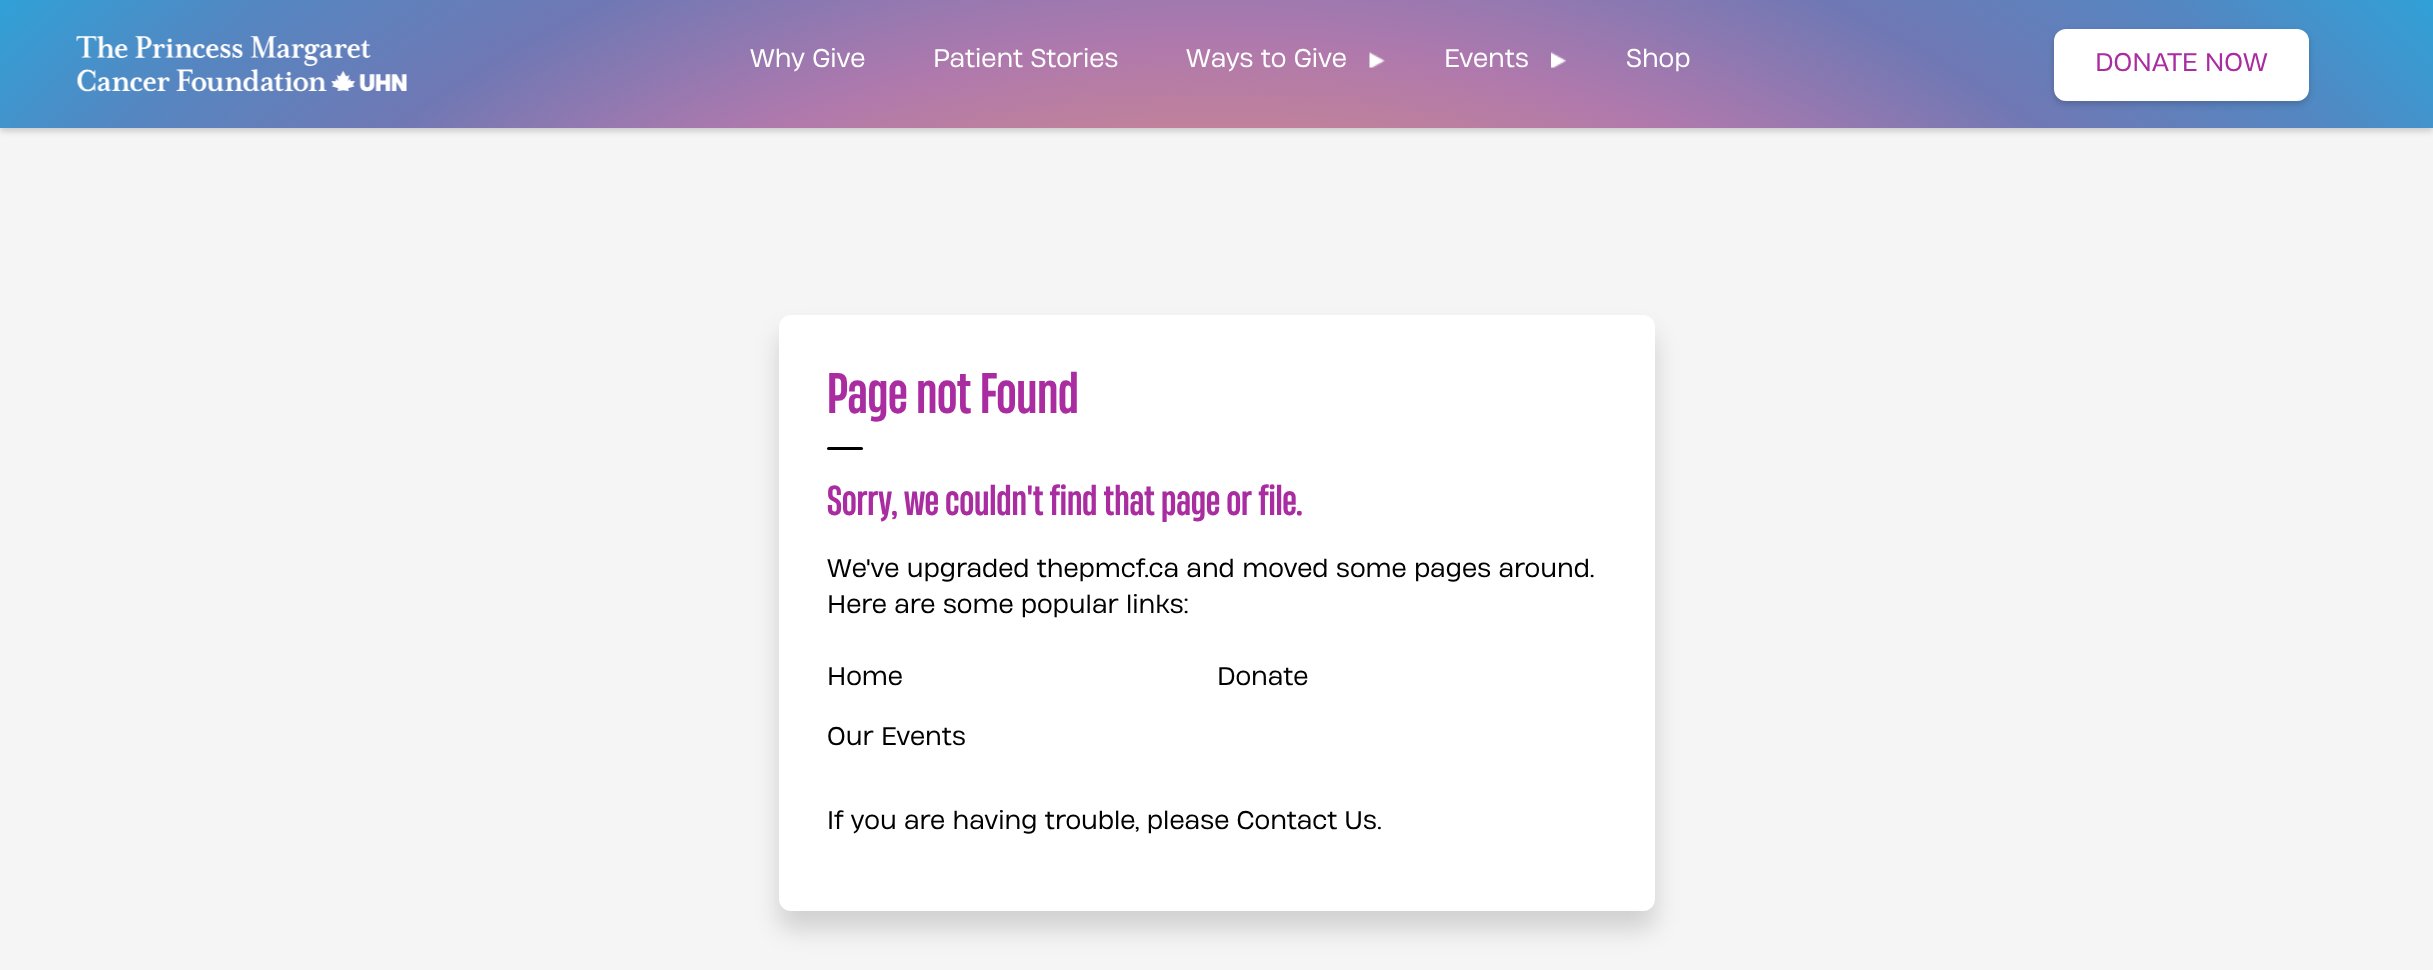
<svg xmlns="http://www.w3.org/2000/svg" width="2433" height="970">
<style>
.a{font:24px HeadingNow;fill:#fff}
.b{font:24px HeadingNow;fill:#a92ca1}
.c{font:500 54px HeadingNow;fill:#a92ca1}
.d{font:500 39.6px HeadingNow;fill:#a92ca1}
.e{font:24px HeadingNow;fill:#000}
</style>
<defs>
<radialGradient id="g1" gradientUnits="userSpaceOnUse" cx="1217" cy="1275" r="1762"><stop offset="0.5" stop-color="#e18062"/><stop offset="0.55" stop-color="#e29275"/><stop offset="0.7" stop-color="#af79ad"/><stop offset="0.8" stop-color="#7078b4"/><stop offset="0.9" stop-color="#5586c1"/><stop offset="1" stop-color="#30a1d7"/></radialGradient>
</defs>
<rect width="100%" height="100%" fill="#f5f5f5"/>
<path fill="#0000002e" filter="blur(3px)" d="M0 3h2433v128H0z"/>
<path fill="url(#g1)" d="M0 0h2433v128H0z"/>
<image href="1.png" x="76" y="36" width="331" height="56"/>
<image href="2.png" x="1369" y="52" width="16" height="16"/>
<image href="3.png" x="1551" y="52" width="15" height="16"/>
<rect fill="#0000002e" filter="blur(3px)" x="2054" y="32" width="255" height="72" rx="12"/>
<rect fill="#fff" x="2054" y="29" width="255" height="72" rx="12"/>
<rect fill="#00000026" filter="blur(12px)" x="779" y="333" width="876" height="596" rx="12"/>
<rect fill="#fff" x="779" y="315" width="876" height="596" rx="12"/>
<rect fill="#000" x="827" y="447" width="36" height="3" rx="1.5"/>
<text class="a" x="750" y="67">Why Give</text>
<text class="a" x="933" y="67">Patient Stories</text>
<text class="a" x="1186" y="67">Ways to Give</text>
<text class="a" x="1444" y="67">Events</text>
<text class="a" x="1626" y="67">Shop</text>
<text class="b" x="2095" y="71">DONATE NOW</text>
<text class="c" x="827" y="413">Page not Found</text>
<text class="d" x="827" y="515">Sorry, we couldn't find that page or file.</text>
<text class="e" x="827" y="577">We've upgraded thepmcf.ca and moved some pages around.</text>
<text class="e" x="827" y="613">Here are some popular links:</text>
<text class="e" x="827" y="685">Home</text>
<text class="e" x="1217" y="685">Donate</text>
<text class="e" x="827" y="745">Our Events</text>
<text class="e" x="827" y="829">If you are having trouble, please Contact Us.</text>
</svg>
